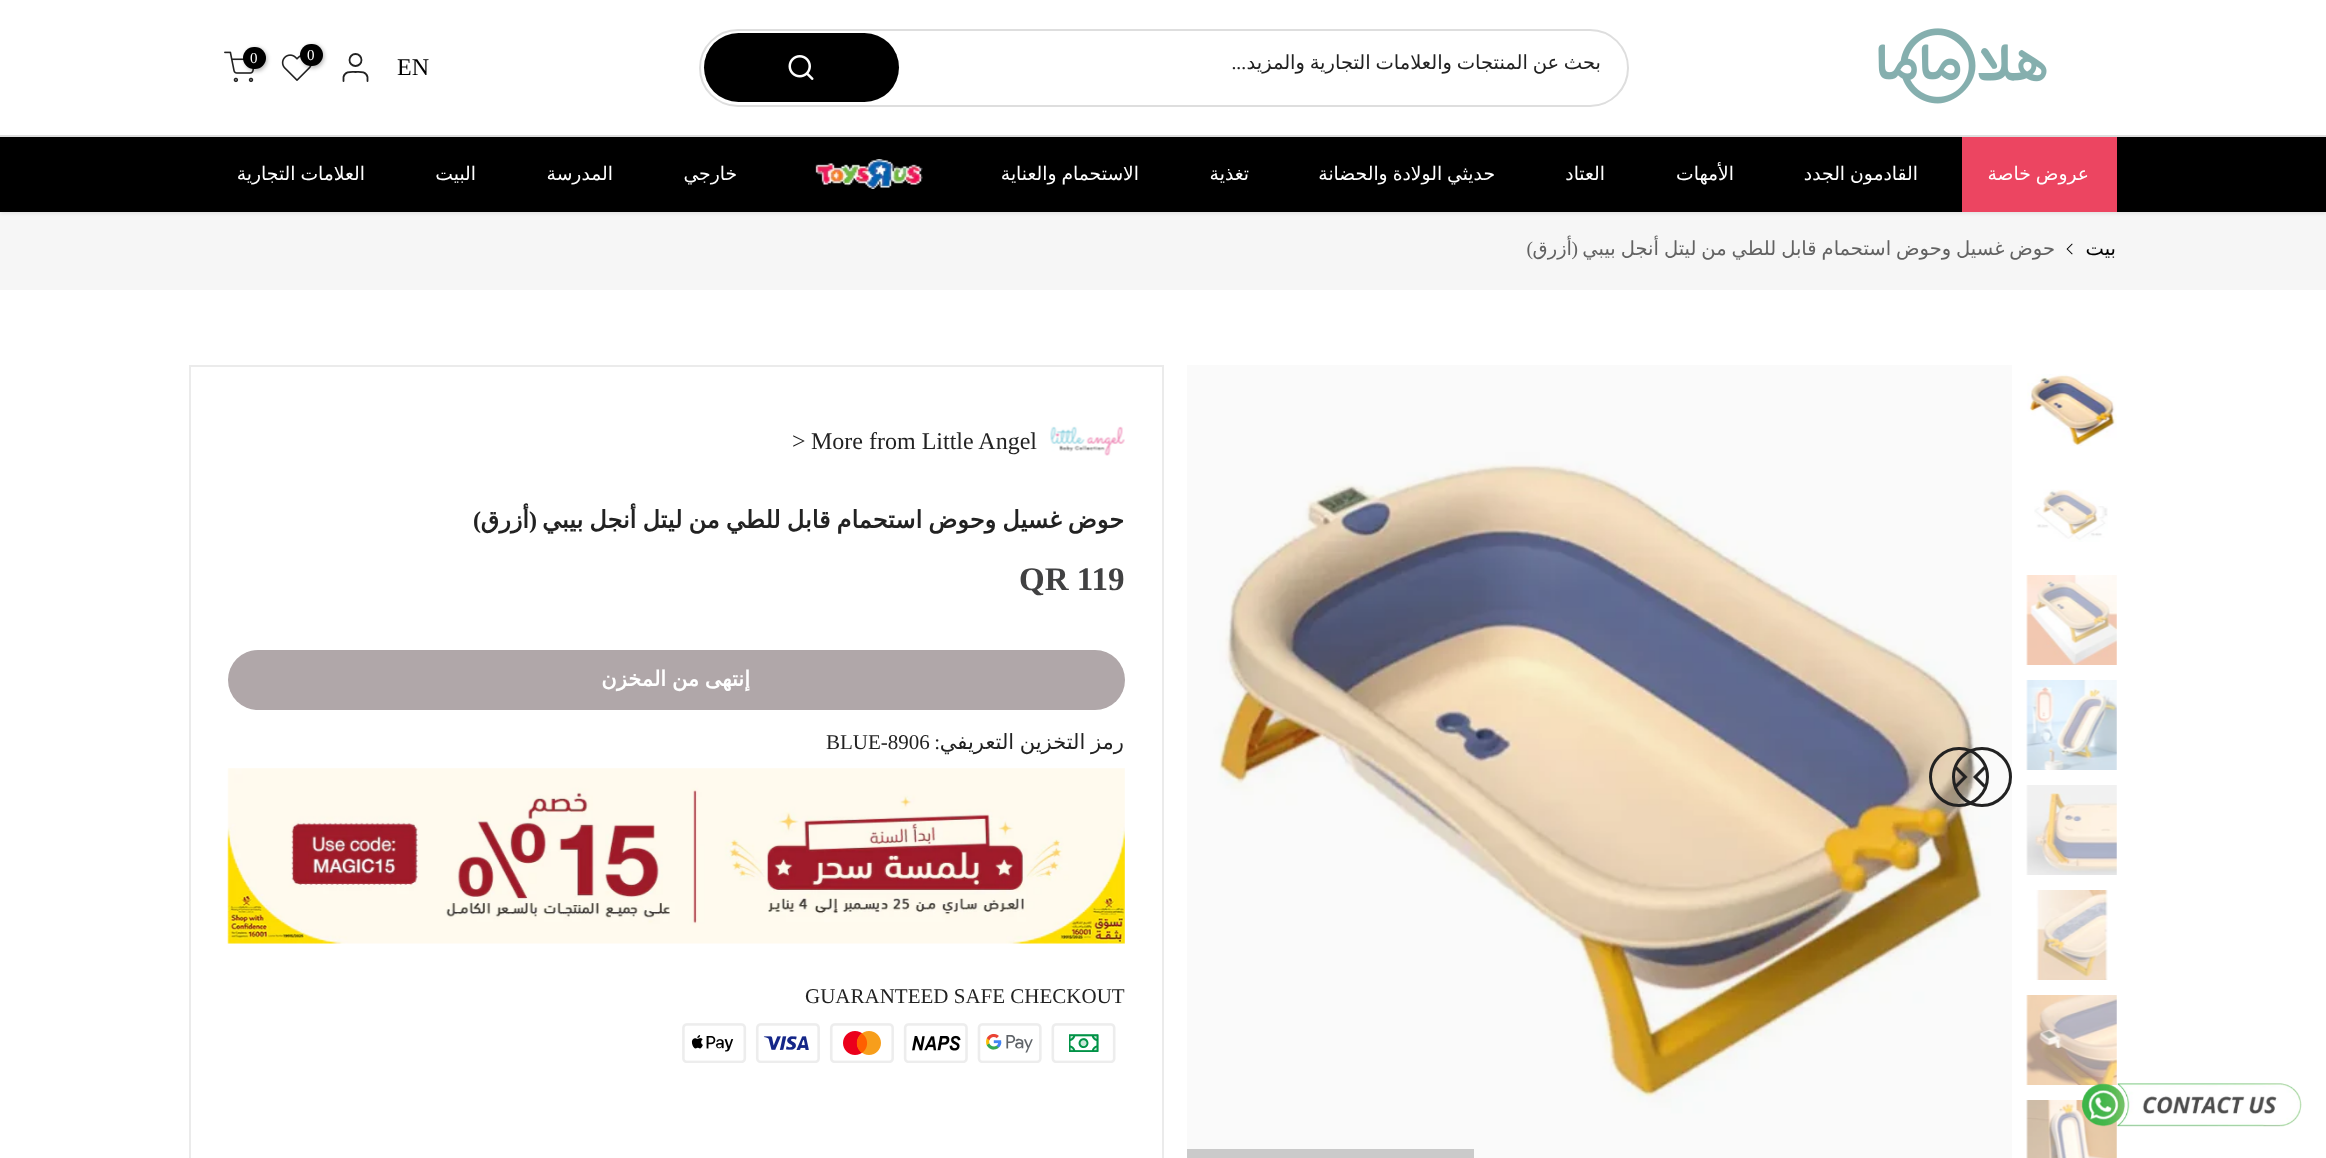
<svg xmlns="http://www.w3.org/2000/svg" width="2326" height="1158">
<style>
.a{font:19.5px DejaVu Sans;direction:rtl;fill:#222}
.b{font:19.5px Liberation Serif;direction:rtl;fill:#222}
.c{font:24px Liberation Serif;fill:#000}
.d{font:15px Liberation Serif;fill:#fff}
.e{font:18.75px DejaVu Sans;direction:rtl;fill:#fff}
.f{font:19.5px DejaVu Sans;direction:rtl;fill:#000}
.g{font:19.5px DejaVu Sans;direction:rtl;fill:#626262}
.h{font:19.5px Liberation Serif;direction:rtl;fill:#626262}
.i{font:24px Liberation Serif;fill:#222}
.j{font:bold 24px DejaVu Sans;direction:rtl;fill:#222}
.k{font:bold 24px Liberation Serif;direction:rtl;fill:#222}
.l{font:bold 33px Liberation Serif;fill:#414142}
.m{font:bold 21px DejaVu Sans;direction:rtl;fill:#fff}
.n{font:21px DejaVu Sans;direction:rtl;fill:#222}
.o{font:21px Liberation Serif;direction:rtl;fill:#222}
.p{font:21px Liberation Serif;fill:#222}
</style>
<defs>
<clipPath id="clip1"><path d="M921 51h681v24H921z"/></clipPath>
</defs>
<rect width="100%" height="100%" fill="#fff"/>
<path fill="#f6f6f6" d="M0 212h2326v78H0z"/>
<path fill="#0000001a" filter="blur(2px)" d="M0 2h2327v211H0z"/>
<path fill="#fff" d="M0 0h2326v135H0z"/>
<path fill="#dedede" d="M0 135h2326v2H0z"/>
<image href="1.png" x="1878" y="28" width="169" height="76"/>
<rect fill="none" stroke="#dedede" stroke-width="2" x="700" y="30" width="928" height="76" rx="38"/>
<rect fill="#000" x="704" y="33" width="195" height="69" rx="34.5"/>
<image href="2.png" x="788" y="55" width="26" height="25"/>
<circle fill="none" stroke="#222" stroke-width="1.8" cx="355.5" cy="60" r="6"/>
<path fill="none" stroke="#222" stroke-width="1.8" stroke-linecap="round" stroke-linejoin="round" d="M367.5 81v-4c-1.5-6-7.5-5-12-5c-4.5 0-10.5-1-12 5v4"/>
<image href="3.png" x="281" y="54" width="31" height="27"/>
<rect fill="#0000004d" filter="blur(2px)" x="302" y="45" width="22" height="23" rx="11"/>
<rect fill="#000" x="300" y="44" width="23" height="22" rx="11"/>
<image href="4.png" x="224" y="51" width="30" height="32"/>
<rect fill="#0000004d" filter="blur(2px)" x="245" y="48" width="22" height="23" rx="11"/>
<rect fill="#000" x="243" y="47" width="23" height="22" rx="11"/>
<path fill="#000" d="M0 137h2326v75H0z"/>
<path fill="#ec4561" d="M1962 137h155v75H1962z"/>
<image href="5.png" x="815" y="159" width="108" height="30"/>
<image href="6.png" x="2066" y="243" width="7" height="12"/>
<image href="7.png" x="2027" y="374" width="90" height="72"/>
<image href="8.png" x="2034" y="489" width="74" height="53"/>
<image href="9.png" x="2026" y="575" width="91" height="90"/>
<image href="10.png" x="2026" y="680" width="91" height="90"/>
<image href="11.png" x="2026" y="785" width="91" height="90"/>
<image href="12.png" x="2036" y="890" width="72" height="90"/>
<image href="13.png" x="2026" y="995" width="91" height="90"/>
<image href="14.png" x="2026" y="1100" width="91" height="58"/>
<image href="15.png" x="1187" y="365" width="825" height="793"/>
<path fill="#cacaca" d="M1187 1149h287v9H1187z"/>
<circle fill="none" stroke="#222" stroke-width="3" cx="1959" cy="777" r="28.5"/>
<image href="16.png" x="1956" y="766" width="12" height="22"/>
<circle fill="none" stroke="#222" stroke-width="3" cx="1982" cy="777" r="28.5"/>
<image href="17.png" x="1973" y="766" width="12" height="22"/>
<path fill="none" stroke="#ebebeb" stroke-width="2" d="M190 366h973v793H190z"/>
<image href="18.png" x="1050" y="426" width="75" height="30"/>
<rect fill="#b0a7a9" x="228" y="650" width="897" height="60" rx="30"/>
<image href="19.png" x="227" y="768" width="898" height="176"/>
<image href="20.png" x="682" y="1023" width="434" height="40"/>
<image href="21.png" x="2081" y="1083" width="221" height="44"/>
<g clip-path="url(#clip1)">
<text class="a" x="1601" y="69" word-spacing="-1.5">بحث عن المنتجات والعلامات التجارية والمزيد</text>
</g>
<text class="b" x="1246" y="69">...</text>
<text class="c" x="397" y="75">EN</text>
<text class="d" x="307" y="60">0</text>
<text class="d" x="250" y="63">0</text>
<text class="e" x="2089" y="180" word-spacing="-1">عروض خاصة</text>
<text class="e" x="1918" y="180" word-spacing="-1">القادمون الجدد</text>
<text class="e" x="1734" y="180">الأمهات</text>
<text class="e" x="1605" y="180">العتاد</text>
<text class="e" x="1495" y="180" word-spacing="-1">حديثي الولادة والحضانة</text>
<text class="e" x="1249" y="180">تغذية</text>
<text class="e" x="1139" y="180" word-spacing="-1">الاستحمام والعناية</text>
<text class="e" x="737" y="180">خارجي</text>
<text class="e" x="613" y="180">المدرسة</text>
<text class="e" x="476" y="180">البيت</text>
<text class="e" x="365" y="180" word-spacing="-1">العلامات التجارية</text>
<text class="f" x="2116" y="255">بيت</text>
<text class="g" x="2055" y="255" word-spacing="-1.25">حوض غسيل وحوض استحمام قابل للطي من ليتل أنجل بيبي</text>
<text class="h" x="1578" y="255">(</text>
<text class="g" x="1572" y="255">أزرق</text>
<text class="h" x="1533" y="255">)</text>
<text class="i" x="811" y="449">More from Little Angel</text>
<text class="i" x="792" y="449">&gt;</text>
<text class="j" x="1124" y="528" word-spacing="-1.5">حوض غسيل وحوض استحمام قابل للطي من ليتل أنجل بيبي</text>
<text class="k" x="537" y="528">(</text>
<text class="j" x="529" y="528">أزرق</text>
<text class="k" x="481" y="528">)</text>
<text class="l" x="1019" y="590">QR 119</text>
<text class="m" x="750" y="686" word-spacing="-1">إنتهى من المخزن</text>
<text class="n" x="1124" y="749" word-spacing="-1">رمز التخزين التعريفي</text>
<text class="o" x="940" y="749">:</text>
<text class="p" x="826" y="749">BLUE-8906</text>
<text class="p" x="805" y="1003">GUARANTEED SAFE CHECKOUT</text>
</svg>
